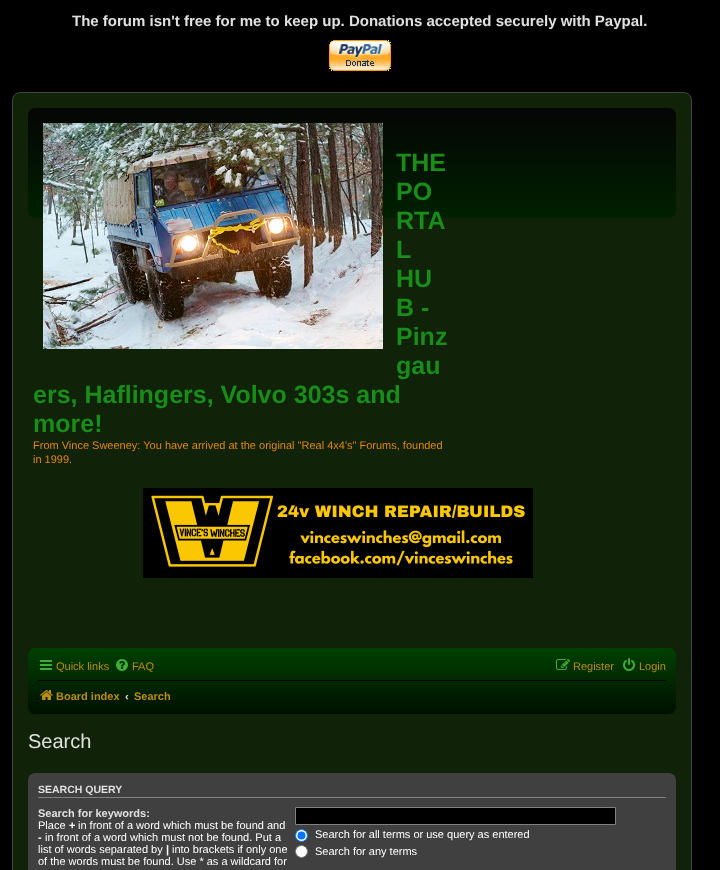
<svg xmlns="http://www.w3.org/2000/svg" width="720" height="870">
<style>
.a{font:bold 15px Liberation Sans;fill:#e0e0e0}
.b{font:bold 25px Liberation Sans;fill:#198c19}
.c{font:11px Liberation Sans;fill:#e3860a}
.d{font:11px Liberation Sans;fill:#ba8d13}
.e{font:bold 11px Liberation Sans;fill:#ba8d13}
.f{font:bold 11px Liberation Sans;fill:#e0e0e0}
.g{font:20px Liberation Sans;fill:#e0e0e0}
.h{font:bold 10.5px Liberation Sans;fill:#e0e0e0}
.i{font:11px Liberation Sans;fill:#fff}
.j{font:bold 11px Liberation Sans;fill:#fff}
</style>
<defs>
<linearGradient id="g1" gradientUnits="userSpaceOnUse" x1="352" y1="108" x2="352" y2="218"><stop offset="0" stop-color="#050505"/><stop offset="1" stop-color="#002000"/></linearGradient>
<linearGradient id="g2" gradientUnits="userSpaceOnUse" x1="352" y1="648" x2="352" y2="714"><stop offset="0" stop-color="#004000"/><stop offset="1" stop-color="#001000"/></linearGradient>
</defs>
<rect width="100%" height="100%" fill="#000"/>
<image href="1.png" x="329" y="40" width="62" height="31"/>
<rect fill="#102208" stroke="#454545" x="12.5" y="92.5" width="679" height="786" rx="7.5"/>
<rect fill="url(#g1)" x="28" y="108" width="648" height="110" rx="7"/>
<image href="2.png" x="43" y="123" width="340" height="226"/>
<image href="3.png" x="143" y="488" width="390" height="90"/>
<rect fill="url(#g2)" x="28" y="648" width="648" height="66" rx="7"/>
<image href="4.png" x="40" y="660" width="12" height="10"/>
<image href="5.png" x="116" y="659" width="12" height="12"/>
<image href="6.png" x="556" y="659" width="14" height="11"/>
<image href="7.png" x="623" y="658" width="12" height="13"/>
<path fill="#000" d="M38 680h628v1H38z"/>
<image href="8.png" x="40" y="690" width="13" height="10"/>
<rect fill="#404040" x="28" y="773" width="648" height="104" rx="7"/>
<path fill="#808080" d="M38 797h628v1H38z"/>
<path fill="#000" stroke="#808080" d="M295.5 807.5h320v17H295.5z"/>
<circle fill="#fff" stroke="#0075ff" cx="301.5" cy="835.5" r="6"/>
<circle fill="#0075ff" cx="301.5" cy="835.5" r="4"/>
<circle fill="#fff" stroke="#767676" cx="301.5" cy="851.5" r="6"/>
<text class="a" x="72" y="26">The forum isn't free for me to keep up. Donations accepted securely with Paypal.</text>
<text class="b" x="396" y="171">THE</text>
<text class="b" x="396" y="200">PO</text>
<text class="b" x="396" y="229">RTA</text>
<text class="b" x="396" y="258">L</text>
<text class="b" x="396" y="287">HU</text>
<text class="b" x="396" y="316">B -</text>
<text class="b" x="396" y="345">Pinz</text>
<text class="b" x="396" y="374">gau</text>
<text class="b" x="33" y="403">ers, Haflingers, Volvo 303s and</text>
<text class="b" x="33" y="432">more!</text>
<text class="c" x="33" y="449">From Vince Sweeney: You have arrived at the original "Real 4x4's" Forums, founded</text>
<text class="c" x="33" y="463">in 1999.</text>
<text class="d" x="56" y="670">Quick links</text>
<text class="d" x="132" y="670">FAQ</text>
<text class="d" x="573" y="670">Register</text>
<text class="d" x="639" y="670">Login</text>
<text class="e" x="56" y="700">Board index</text>
<text class="f" x="125" y="700">‹</text>
<text class="e" x="134" y="700">Search</text>
<text class="g" x="28" y="748">Search</text>
<text class="h" x="38" y="793">SEARCH QUERY</text>
<text class="f" x="38" y="817">Search for keywords:</text>
<text class="i" x="38" y="829">Place</text>
<text class="j" x="69" y="829">+</text>
<text class="i" x="78" y="829">in front of a word which must be found and</text>
<text class="j" x="38" y="841">-</text>
<text class="i" x="45" y="841">in front of a word which must not be found. Put a</text>
<text class="i" x="38" y="853">list of words separated by</text>
<text class="j" x="166" y="853">|</text>
<text class="i" x="172" y="853">into brackets if only one</text>
<text class="i" x="38" y="865">of the words must be found. Use * as a wildcard for</text>
<text class="i" x="315" y="838">Search for all terms or use query as entered</text>
<text class="i" x="315" y="855">Search for any terms</text>
</svg>
